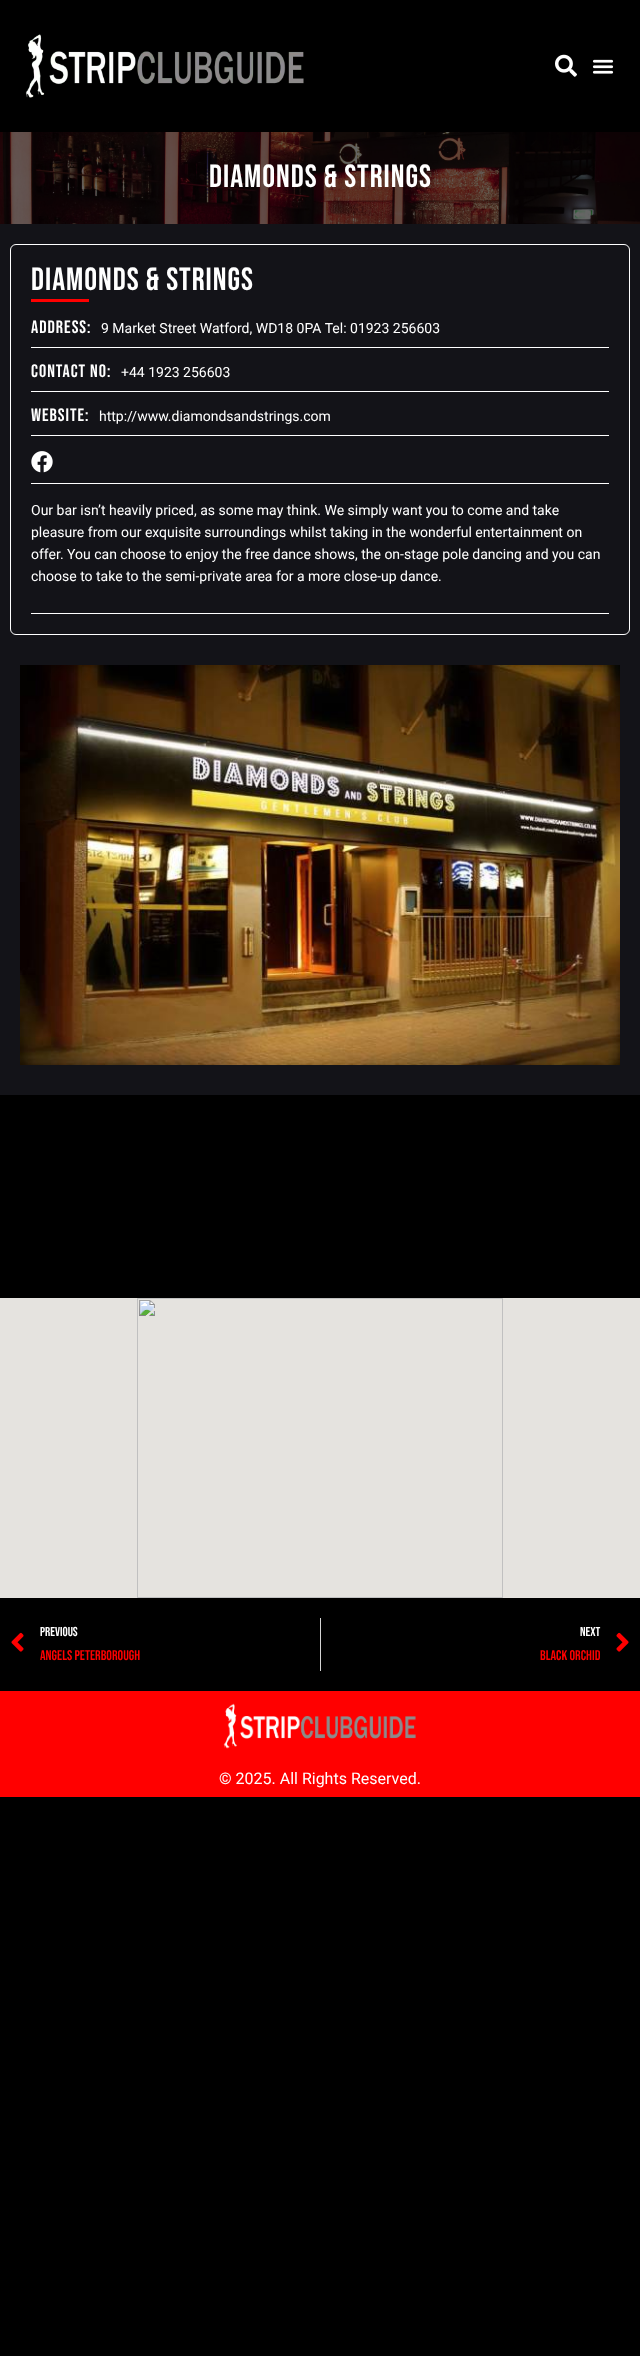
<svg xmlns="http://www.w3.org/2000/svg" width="640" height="2356">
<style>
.a{font:32px Bebas Neue;letter-spacing:1px;fill:#fff}
.b{font:18px Bebas Neue;letter-spacing:1px;fill:#fff}
.c{font:14px Roboto;fill:#fff}
.d{font:13px Bebas Neue;fill:#fff}
.e{font:14px Bebas Neue;fill:#f00}
.f{font:16px Roboto;fill:#fff}
</style>
<rect width="100%" height="100%" fill="#000"/>
<image href="1.png" x="25" y="34" width="279" height="64"/>
<image href="2.png" x="555" y="54" width="22" height="23"/>
<image href="3.png" x="592" y="59" width="22" height="15"/>
<image href="4.png" x="0" y="132" width="640" height="92"/>
<path fill="#131318" d="M0 224h640v871H0z"/>
<rect fill="none" stroke="#fff" x="10.5" y="244.5" width="619" height="390" rx="5.5"/>
<path fill="#f00" d="M31 299h58v3H31z"/>
<path fill="#fff" d="M31 347h578v1H31z"/>
<path fill="#fff" d="M31 391h578v1H31z"/>
<path fill="#fff" d="M31 435h578v1H31z"/>
<path fill="#fff" d="M31 483h578v1H31z"/>
<image href="5.png" x="31" y="451" width="22" height="22"/>
<path fill="#fff" d="M31 613h578v1H31z"/>
<image href="6.png" x="20" y="665" width="600" height="400"/>
<image href="7.png" x="0" y="1298" width="640" height="300"/>
<image href="8.png" x="11" y="1632" width="13" height="20"/>
<path fill="#d4d4d4" d="M320 1618h1v53H320z"/>
<image href="9.png" x="616" y="1632" width="13" height="20"/>
<path fill="#f00" d="M0 1691h640v106H0z"/>
<image href="10.png" x="223" y="1703" width="193" height="46"/>
<text class="a" x="209" y="187">DIAMONDS &amp; STRINGS</text>
<text class="a" x="31" y="290">DIAMONDS &amp; STRINGS</text>
<text class="b" x="31" y="333">Address:</text>
<text class="c" x="101" y="333">9 Market Street Watford, WD18 0PA Tel: 01923 256603</text>
<text class="b" x="31" y="377">Contact No:</text>
<text class="c" x="121" y="377">+44 1923 256603</text>
<text class="b" x="31" y="421">Website:</text>
<text class="c" x="99" y="421">http://www.diamondsandstrings.com</text>
<text class="c" x="31" y="515">Our bar isn’t heavily priced, as some may think. We simply want you to come and take</text>
<text class="c" x="31" y="537">pleasure from our exquisite surroundings whilst taking in the wonderful entertainment on</text>
<text class="c" x="31" y="559">offer. You can choose to enjoy the free dance shows, the on-stage pole dancing and you can</text>
<text class="c" x="31" y="581">choose to take to the semi-private area for a more close-up dance.</text>
<text class="d" x="40" y="1636">PREVIOUS</text>
<text class="e" x="40" y="1660">ANGELS PETERBOROUGH</text>
<text class="d" x="580" y="1636">NEXT</text>
<text class="e" x="540" y="1660">BLACK ORCHID</text>
<text class="f" x="219" y="1784">© 2025. All Rights Reserved.</text>
</svg>
